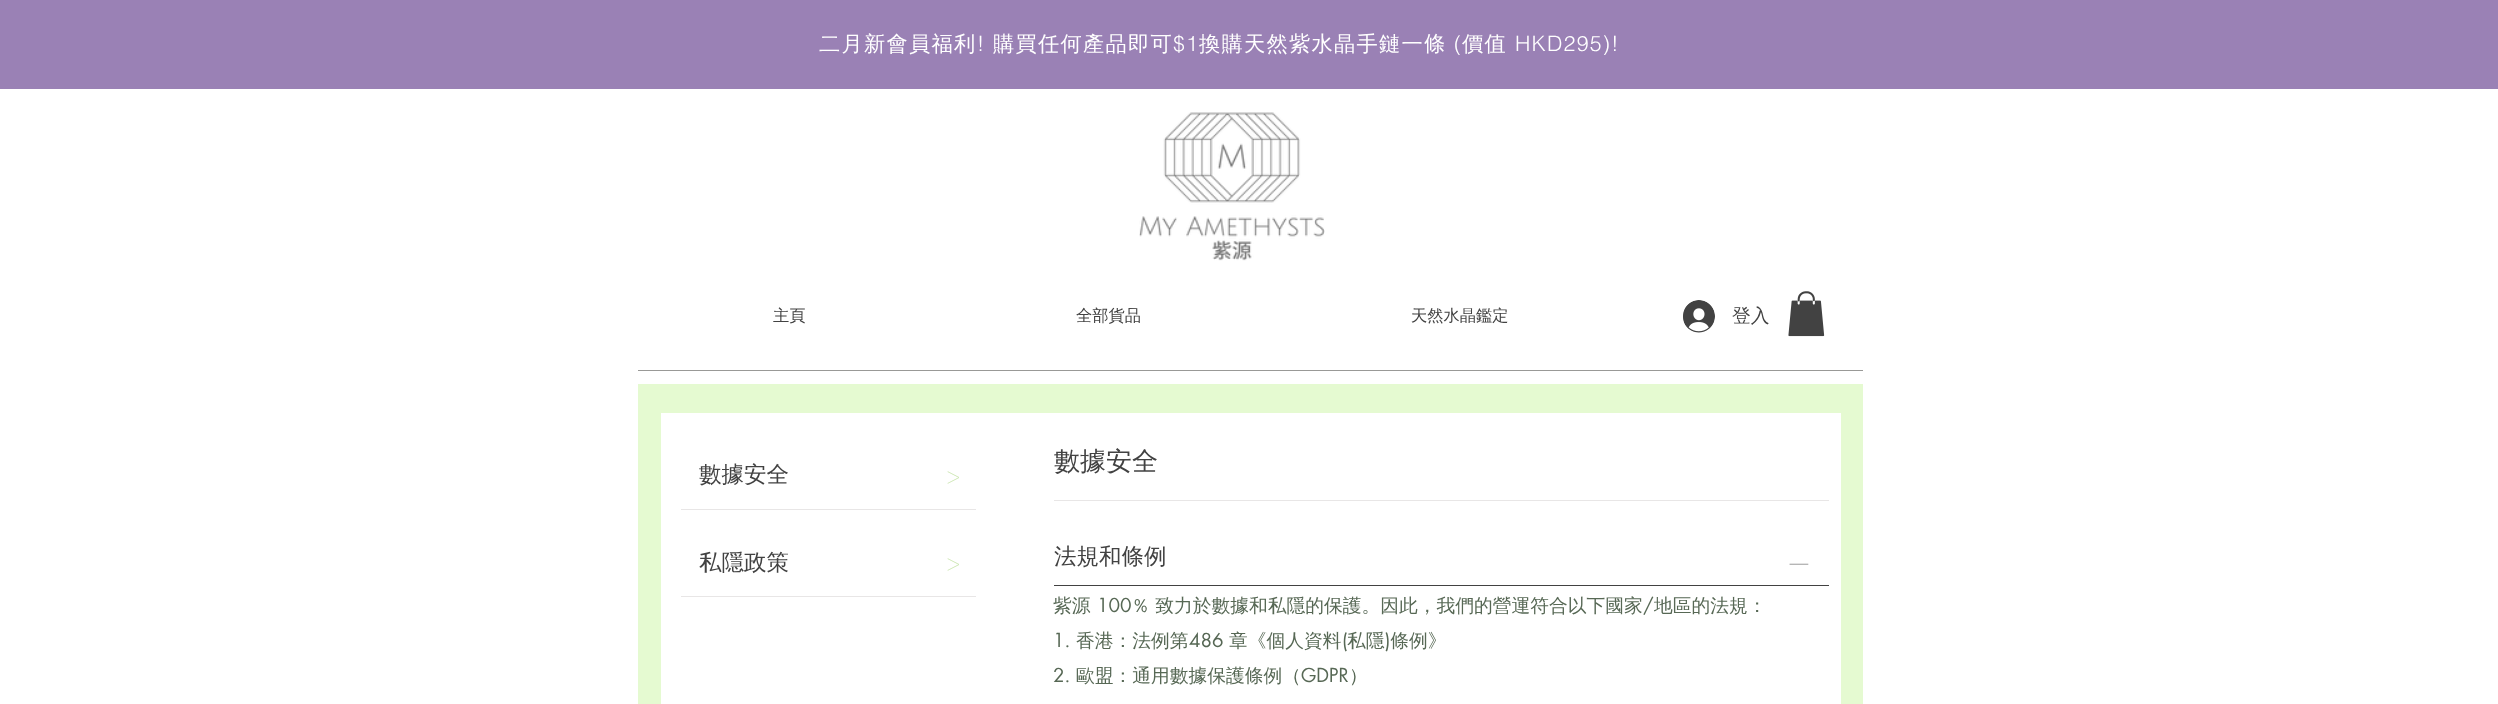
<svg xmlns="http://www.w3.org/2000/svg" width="2498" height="704">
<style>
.a{font:500 21.25px WenQuanYi Zen Hei;letter-spacing:1.25px;fill:#fff}
.b{font:300 21.25px helvetica;letter-spacing:1.25px;fill:#fff}
.c{font:500 16.25px WenQuanYi Zen Hei;fill:#424242}
.d{font:500 18.75px WenQuanYi Zen Hei;fill:#424242}
.e{font:500 22.5px WenQuanYi Zen Hei;fill:#424242}
.f{font:200 25px Work Sans;fill:#cae5af}
.g{font:500 26px WenQuanYi Zen Hei;fill:#424242}
.h{font:28px 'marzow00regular';fill:#424242}
.i{font:500 18.75px WenQuanYi Zen Hei;fill:#576855}
.j{font:18.75px futura;fill:#576855}
</style>
<rect width="100%" height="100%" fill="#fff"/>
<path fill="#9a81b5" d="M0 0h2498v89H0z"/>
<image href="1.png" x="1139" y="112" width="186" height="149"/>
<image href="2.png" x="1683" y="300" width="32" height="33"/>
<image href="3.png" x="1788" y="291" width="37" height="46"/>
<path fill="#999997" d="M638 370h1225v1H638z"/>
<path fill="#e5fad1" d="M638 384h1225v320H638z"/>
<path fill="#fff" d="M661 413h1180v291H661z"/>
<path fill="#e8e6e6" d="M681 509h295v1H681z"/>
<path fill="#e8e6e6" d="M681 596h295v1H681z"/>
<path fill="#e8e6e6" d="M1054 500h775v1H1054z"/>
<path fill="#424242" d="M1054 585h775v1H1054z"/>
<text class="a" x="819" y="51">二月新會員福利</text>
<text class="b" x="977" y="51">!</text>
<text class="a" x="993" y="51">購買任何產品即可</text>
<text class="b" x="1173" y="51">$1</text>
<text class="a" x="1199" y="51">換購天然紫水晶手鏈一條</text>
<text class="b" x="1454" y="51">(</text>
<text class="a" x="1462" y="51">價值</text>
<text class="b" x="1515" y="51">HKD295)!</text>
<text class="c" x="773" y="321">主頁</text>
<text class="c" x="1076" y="321">全部貨品</text>
<text class="c" x="1411" y="321">天然水晶鑑定</text>
<text class="d" x="1732" y="322">登入</text>
<text class="e" x="699" y="482">數據安全</text>
<text class="f" x="946" y="485">&gt;</text>
<text class="e" x="699" y="570">私隱政策</text>
<text class="f" x="946" y="572">&gt;</text>
<text class="g" x="1054" y="470">數據安全</text>
<text class="e" x="1054" y="564">法規和條例</text>
<text class="h" x="1789" y="574">-</text>
<text class="i" x="1053" y="612">紫源</text>
<text class="j" x="1097" y="612">100</text>
<text class="i" x="1131" y="612">％ 致力於數據和私隱的保護。因此，我們的營運符合以下國家</text>
<text class="j" x="1643" y="612">/</text>
<text class="i" x="1654" y="612">地區的法規：</text>
<text class="j" x="1053" y="647">1.</text>
<text class="i" x="1076" y="647">香港：法例第</text>
<text class="j" x="1189" y="647">486</text>
<text class="i" x="1229" y="647">章《個人資料 私隱 條例》</text>
<text class="j" x="1342" y="647">(</text>
<text class="j" x="1385" y="647">)</text>
<text class="j" x="1053" y="682">2.</text>
<text class="i" x="1076" y="682">歐盟：通用數據保護條例（</text>
<text class="j" x="1301" y="682">GDPR</text>
<text class="i" x="1349" y="682">）</text>
</svg>
